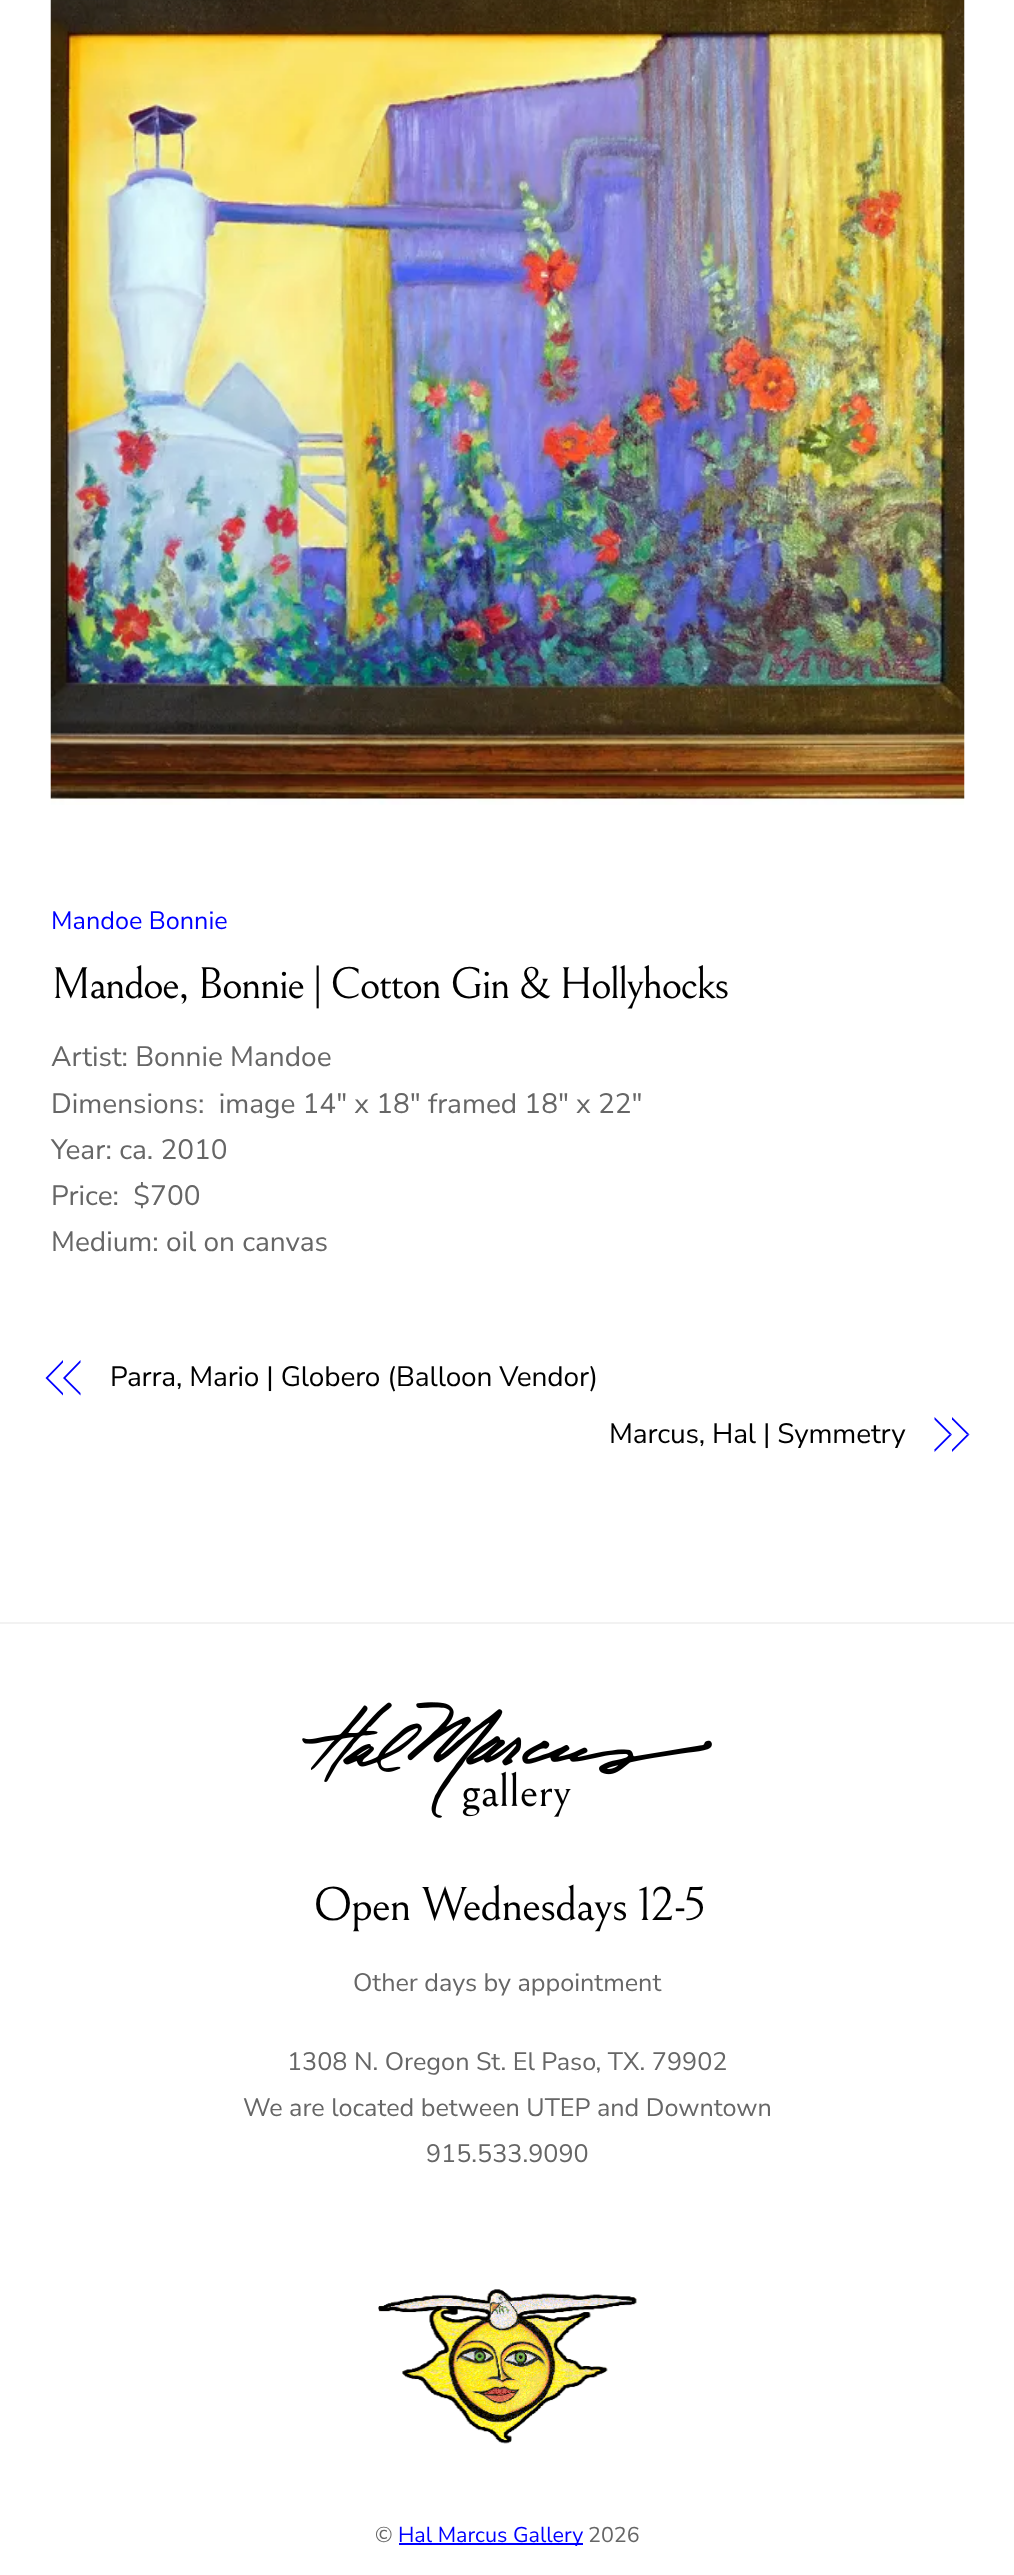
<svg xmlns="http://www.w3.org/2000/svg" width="1014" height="2575">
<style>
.a{font:200 25.2px Nunito Sans;fill:#00f}
.b{font:44.75px Bellefair;letter-spacing:-1.8px;fill:#000}
.c{font:200 28px Nunito Sans;fill:#666}
.d{font:200 28px Nunito Sans;letter-spacing:-0.15px;fill:#000}
.e{font:48px Bellefair;letter-spacing:-1.4px;fill:#000}
.f{font:200 25.2px Nunito Sans;fill:#666}
.g{font:200 21.5px Nunito Sans;fill:#666}
.h{font:200 21.5px Nunito Sans;fill:#00f}
</style>
<rect width="100%" height="100%" fill="#fff"/>
<image href="1.png" x="50" y="0" width="915" height="805"/>
<path fill="#00f" d="M45.5 1378l17.5-18v2.5l-15 15.5zm17.5 17.5l-17.5-17.5h2.5l15 15zm0-17.5l17.5-18v2.5l-15 15.5z"/>
<path fill="#00f" d="M80.5 1395.5l-17.5-17.5h2.5l15 15z"/>
<path fill="#00f" d="M952 1417l17.5 17.5h-2.5l-15-15z"/>
<path fill="#00f" d="M969.5 1434.5l-17.5 17.5v-2.5l15-15zm-35-17.5l17.5 17.5h-2.5l-15-15z"/>
<path fill="#00f" d="M952 1434.5l-17.5 17.5v-2.5l15-15z"/>
<path fill="#f2f2f2" d="M0 1622h1014v2H0z"/>
<image href="2.png" x="302" y="1702" width="410" height="116"/>
<image href="3.png" x="378" y="2289" width="259" height="155"/>
<path fill="#00f" d="M399 2543h184v2H399z"/>
<text class="a" x="51" y="929">Mandoe Bonnie</text>
<text class="b" x="51" y="998">Mandoe, Bonnie | Cotton Gin &amp; Hollyhocks</text>
<text class="c" x="51" y="1066">Artist: Bonnie Mandoe</text>
<text class="c" xml:space="preserve" x="51" y="1113">Dimensions:  image 14″ x 18″ framed 18″ x 22″</text>
<text class="c" x="51" y="1159">Year: ca. 2010</text>
<text class="c" xml:space="preserve" x="51" y="1205">Price:  $700</text>
<text class="c" x="51" y="1251">Medium: oil on canvas</text>
<text class="d" x="110" y="1386">Parra, Mario | Globero (Balloon Vendor)</text>
<text class="d" x="609" y="1443">Marcus, Hal | Symmetry</text>
<text class="e" x="313" y="1920">Open Wednesdays 12-5</text>
<text class="f" x="353" y="1991">Other days by appointment</text>
<text class="f" x="287" y="2070">1308 N. Oregon St. El Paso, TX. 79902</text>
<text class="f" x="243" y="2116">We are located between UTEP and Downtown</text>
<text class="f" x="426" y="2162">915.533.9090</text>
<text class="g" x="375" y="2542">©</text>
<text class="h" x="398" y="2542">Hal Marcus Gallery</text>
<text class="g" x="588" y="2542">2026</text>
</svg>
